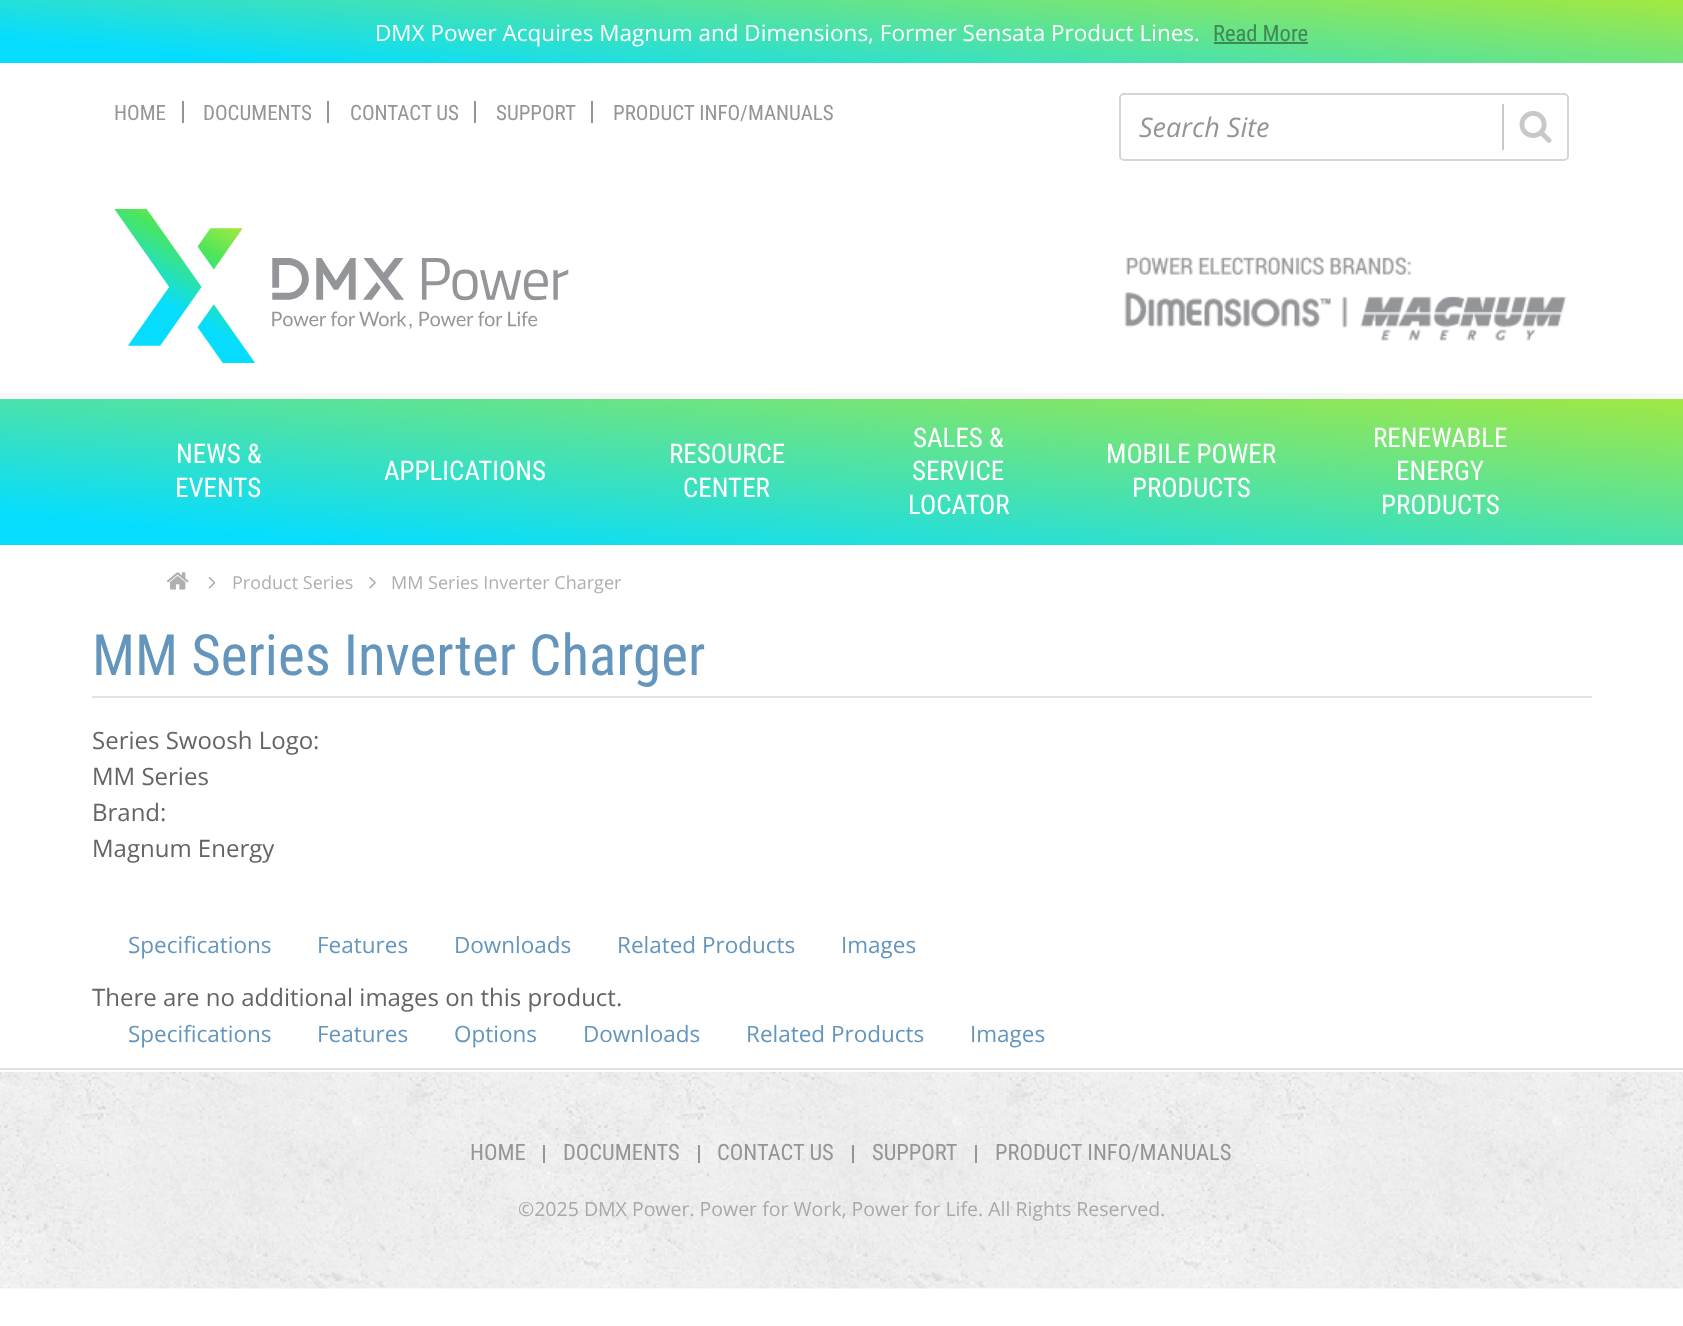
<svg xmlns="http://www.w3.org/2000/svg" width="1683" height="1326">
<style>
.a{font:22.5px Open Sans;fill:#fff}
.b{font:22.5px Roboto Condensed;fill:#3e8952}
.c{font:21px Roboto Condensed;fill:#939597}
.d{font:italic 27px Open Sans;fill:#939597}
.e{font:27px Roboto Condensed;fill:#fff}
.f{font:18px Open Sans;fill:#adafb0}
.g{font:57px Roboto Condensed;fill:#6395bd}
.h{font:24px Open Sans;fill:#636466}
.i{font:22.5px Open Sans;fill:#6395bd}
.j{font:22.5px Roboto Condensed;fill:#939597}
.k{font:19.5px Open Sans;fill:#a8a9ab}
</style>
<defs>
<linearGradient id="g1" gradientUnits="userSpaceOnUse" x1="851" y1="-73" x2="832" y2="136"><stop offset="0" stop-color="#a1e842"/><stop offset="0.89" stop-color="#06ddfe"/></linearGradient>
<linearGradient id="g2" gradientUnits="userSpaceOnUse" x1="851" y1="-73" x2="832" y2="136"><stop offset="0" stop-color="#618b28"/><stop offset="0.89" stop-color="#048598"/></linearGradient>
<linearGradient id="g3" gradientUnits="userSpaceOnUse" x1="854" y1="326" x2="829" y2="617"><stop offset="0" stop-color="#a1e842"/><stop offset="0.89" stop-color="#06ddfe"/></linearGradient>
</defs>
<rect width="100%" height="100%" fill="#fff"/>
<path fill="url(#g1)" d="M0 0h1683v63H0z"/>
<path fill="url(#g2)" d="M1214 42h94v2H1214z"/>
<path fill="#939597" d="M182 101h2v22H182z"/>
<path fill="#939597" d="M327 101h2v22H327z"/>
<path fill="#939597" d="M474 101h2v22H474z"/>
<path fill="#939597" d="M591 101h2v22H591z"/>
<rect fill="none" stroke="#d5d5d5" stroke-width="2" x="1120" y="94" width="448" height="66" rx="4"/>
<path fill="#c7c8c9" d="M1502 104h2v46H1502z"/>
<image href="1.png" x="1519" y="111" width="33" height="32"/>
<image href="2.png" x="114" y="209" width="455" height="154"/>
<image href="3.png" x="1124" y="256" width="443" height="85"/>
<path fill="url(#g3)" d="M0 399h1683v146H0z"/>
<path fill="#f7f7f7" d="M0 393h1683v6H0z"/>
<image href="4.png" x="167" y="572" width="22" height="18"/>
<image href="5.png" x="208" y="577" width="8" height="12"/>
<image href="6.png" x="369" y="577" width="7" height="12"/>
<path fill="#e1e2e2" d="M92 696h1500v2H92z"/>
<image href="7.png" x="0" y="1072" width="1683" height="217"/>
<path fill="#e0e0e0" d="M0 1068h1683v2H0z"/>
<path fill="#939597" d="M543 1145h2v18H543z"/>
<path fill="#939597" d="M698 1145h2v18H698z"/>
<path fill="#939597" d="M852 1145h2v18H852z"/>
<path fill="#939597" d="M975 1145h2v18H975z"/>
<text class="a" x="375" y="41">DMX Power Acquires Magnum and Dimensions, Former Sensata Product Lines.</text>
<text class="b" x="1213" y="41">Read More</text>
<text class="c" x="114" y="120">HOME</text>
<text class="c" x="203" y="120">DOCUMENTS</text>
<text class="c" x="350" y="120">CONTACT US</text>
<text class="c" x="496" y="120">SUPPORT</text>
<text class="c" x="613" y="120">PRODUCT INFO/MANUALS</text>
<text class="d" x="1139" y="137">Search Site</text>
<text class="e" x="176" y="463">NEWS &amp;</text>
<text class="e" x="175" y="497">EVENTS</text>
<text class="e" x="384" y="480">APPLICATIONS</text>
<text class="e" x="669" y="463">RESOURCE</text>
<text class="e" x="683" y="497">CENTER</text>
<text class="e" x="913" y="447">SALES &amp;</text>
<text class="e" x="912" y="480">SERVICE</text>
<text class="e" x="908" y="514">LOCATOR</text>
<text class="e" x="1106" y="463">MOBILE POWER</text>
<text class="e" x="1132" y="497">PRODUCTS</text>
<text class="e" x="1373" y="447">RENEWABLE</text>
<text class="e" x="1396" y="480">ENERGY</text>
<text class="e" x="1381" y="514">PRODUCTS</text>
<text class="f" x="232" y="589">Product Series</text>
<text class="f" x="391" y="589">MM Series Inverter Charger</text>
<text class="g" x="92" y="675">MM Series Inverter Charger</text>
<text class="h" x="92" y="749">Series Swoosh Logo:</text>
<text class="h" x="92" y="785">MM Series</text>
<text class="h" x="92" y="821">Brand:</text>
<text class="h" x="92" y="857">Magnum Energy</text>
<text class="i" x="128" y="953">Specifications</text>
<text class="i" x="317" y="953">Features</text>
<text class="i" x="454" y="953">Downloads</text>
<text class="i" x="617" y="953">Related Products</text>
<text class="i" x="841" y="953">Images</text>
<text class="h" x="92" y="1006">There are no additional images on this product.</text>
<text class="i" x="128" y="1042">Specifications</text>
<text class="i" x="317" y="1042">Features</text>
<text class="i" x="454" y="1042">Options</text>
<text class="i" x="583" y="1042">Downloads</text>
<text class="i" x="746" y="1042">Related Products</text>
<text class="i" x="970" y="1042">Images</text>
<text class="j" x="470" y="1160">HOME</text>
<text class="j" x="563" y="1160">DOCUMENTS</text>
<text class="j" x="717" y="1160">CONTACT US</text>
<text class="j" x="872" y="1160">SUPPORT</text>
<text class="j" x="995" y="1160">PRODUCT INFO/MANUALS</text>
<text class="k" x="518" y="1216">©2025 DMX Power. Power for Work, Power for Life. All Rights Reserved.</text>
</svg>
